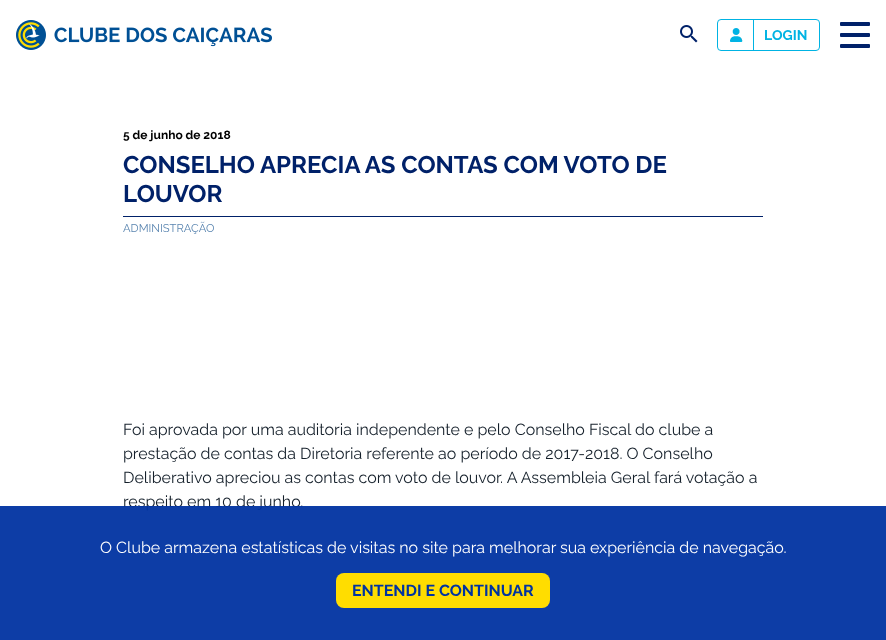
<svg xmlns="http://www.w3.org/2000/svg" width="886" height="640">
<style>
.a{font:bold 14px Raleway;fill:#00b3e3}
.b{font:bold 12px Raleway;fill:#000}
.c{font:bold 24px Raleway;fill:#002169}
.d{font:11.25px Raleway;fill:#5a85b0}
.e{font:16px Raleway;fill:#141f2a}
.f{font:16px Raleway;fill:#fff}
.g{font:bold 16px Raleway;fill:#0033a1}
</style>
<rect width="100%" height="100%" fill="#fff"/>
<image href="1.png" x="16" y="20" width="256" height="30"/>
<image href="2.png" x="680" y="25" width="18" height="18"/>
<rect fill="none" stroke="#00b3e3" x="717.5" y="19.5" width="102" height="31" rx="3.5"/>
<image href="3.png" x="730" y="28" width="13" height="14"/>
<path fill="#00b3e3" d="M753 20h1v30H753z"/>
<rect fill="#002169" x="840" y="22" width="30" height="4" rx="1"/>
<rect fill="#002169" x="840" y="33" width="30" height="4" rx="1"/>
<rect fill="#002169" x="840" y="44" width="30" height="4" rx="1"/>
<path fill="#002169" d="M123 216h640v1H123z"/>
<text class="a" x="764" y="40">LOGIN</text>
<text class="b" x="123" y="139">5 de junho de 2018</text>
<text class="c" x="123" y="173">CONSELHO APRECIA AS CONTAS COM VOTO DE</text>
<text class="c" x="123" y="202">LOUVOR</text>
<text class="d" x="123" y="232">ADMINISTRAÇÃO</text>
<text class="e" x="123" y="435">Foi aprovada por uma auditoria independente e pelo Conselho Fiscal do clube a</text>
<text class="e" x="123" y="459">prestação de contas da Diretoria referente ao período de 2017-2018. O Conselho</text>
<text class="e" x="123" y="483">Deliberativo apreciou as contas com voto de louvor. A Assembleia Geral fará votação a</text>
<text class="e" x="123" y="507">respeito em 10 de junho.</text>
<path fill="#0033a1f2" d="M0 506h886v134H0z"/>
<text class="f" x="100" y="553">O Clube armazena estatísticas de visitas no site para melhorar sua experiência de navegação.</text>
<rect fill="#fd0" x="336" y="573" width="214" height="35" rx="8"/>
<text class="g" x="352" y="596">ENTENDI E CONTINUAR</text>
</svg>
